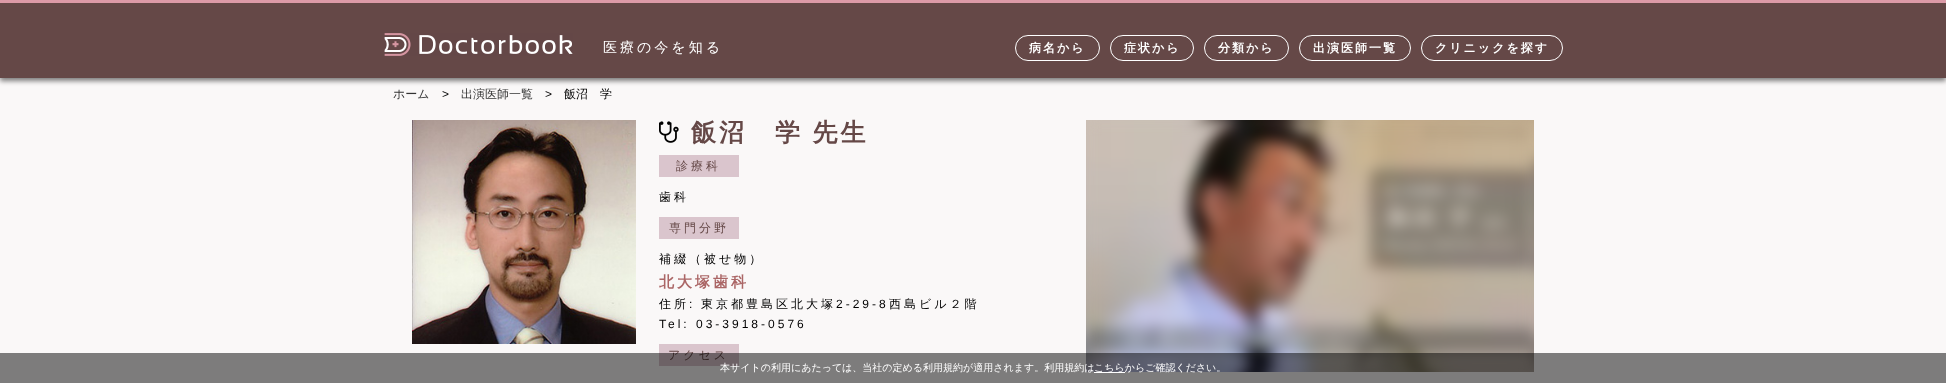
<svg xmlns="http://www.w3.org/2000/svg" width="1946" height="383">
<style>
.a{font:500 14px WenQuanYi Zen Hei;letter-spacing:3px;fill:#fff}
.b{font:bold 12px WenQuanYi Zen Hei;letter-spacing:2px;fill:#fff}
.c{font:500 12px WenQuanYi Zen Hei;fill:#333}
.d{font:12px Liberation Sans;fill:#000}
.e{font:500 12px WenQuanYi Zen Hei;fill:#000}
.f{font:bold 25px WenQuanYi Zen Hei;letter-spacing:3px;fill:#654847}
.g{font:500 12px WenQuanYi Zen Hei;letter-spacing:3px;fill:#654847}
.h{font:500 12px WenQuanYi Zen Hei;letter-spacing:3px;fill:#000}
.i{font:bold 15px WenQuanYi Zen Hei;letter-spacing:3px;fill:#ab6666}
.j{font:12px Liberation Sans;letter-spacing:3px;fill:#000}
.k{font:500 10px WenQuanYi Zen Hei;fill:#fff}
</style>
<rect width="100%" height="100%" fill="#faf8f8"/>
<path fill="#00000080" filter="blur(2.5px)" d="M0 3h1946v78H0z"/>
<path fill="#654847" d="M0 3h1946v75H0z"/>
<path fill="#dc9aa7" d="M0 0h1946v3H0z"/>
<image href="1.png" x="384" y="33" width="189" height="23"/>
<rect fill="none" stroke="#fff" x="1015.5" y="35.5" width="84" height="25" rx="12.5"/>
<rect fill="none" stroke="#fff" x="1110.5" y="35.5" width="83" height="25" rx="12.5"/>
<rect fill="none" stroke="#fff" x="1204.5" y="35.5" width="84" height="25" rx="12.5"/>
<rect fill="none" stroke="#fff" x="1299.5" y="35.5" width="111" height="25" rx="12.5"/>
<rect fill="none" stroke="#fff" x="1421.5" y="35.5" width="141" height="25" rx="12.5"/>
<image href="2.png" x="412" y="120" width="224" height="224"/>
<image href="3.png" x="659" y="121" width="20" height="22"/>
<path fill="#dac5cd" d="M659 155h80v22H659z"/>
<path fill="#dac5cd" d="M659 217h80v22H659z"/>
<path fill="#dac5cd" d="M659 344h80v22H659z"/>
<image href="4.png" x="1086" y="120" width="448" height="252"/>
<text class="a" x="603" y="52">医療の今を知る</text>
<text class="b" x="1029" y="52">病名から</text>
<text class="b" x="1124" y="52">症状から</text>
<text class="b" x="1218" y="52">分類から</text>
<text class="b" x="1313" y="52">出演医師一覧</text>
<text class="b" x="1435" y="52">クリニックを探す</text>
<text class="c" x="393" y="98">ホーム</text>
<text class="d" x="442" y="98">&gt;</text>
<text class="c" x="461" y="98">出演医師一覧</text>
<text class="d" x="545" y="98">&gt;</text>
<text class="e" x="564" y="98">飯沼　学</text>
<text class="f" x="691" y="141" word-spacing="-1">飯沼　学 先生</text>
<text class="g" x="676" y="170">診療科</text>
<text class="h" x="659" y="201">歯科</text>
<text class="g" x="669" y="232">専門分野</text>
<text class="h" x="659" y="263">補綴（被せ物）</text>
<text class="i" x="659" y="287">北大塚歯科</text>
<text class="h" x="659" y="308">住所</text>
<text class="j" x="689" y="308">:</text>
<text class="h" x="701" y="308">東京都豊島区北大塚</text>
<text class="j" x="836" y="308">2-29-8</text>
<text class="h" x="889" y="308">西島ビル２階</text>
<text class="j" x="659" y="328">Tel: 03-3918-0576</text>
<text class="g" x="668" y="359">アクセス</text>
<path fill="#00000080" d="M0 353h1946v30H0z"/>
<text class="k" x="720" y="371">本サイトの利用にあたっては、当社の定める利用規約が適用されます。利用規約は</text>
<path fill="#fff" d="M1094 372h31v1H1094z"/>
<text class="k" x="1094" y="371">こちらからご確認ください。</text>
</svg>
